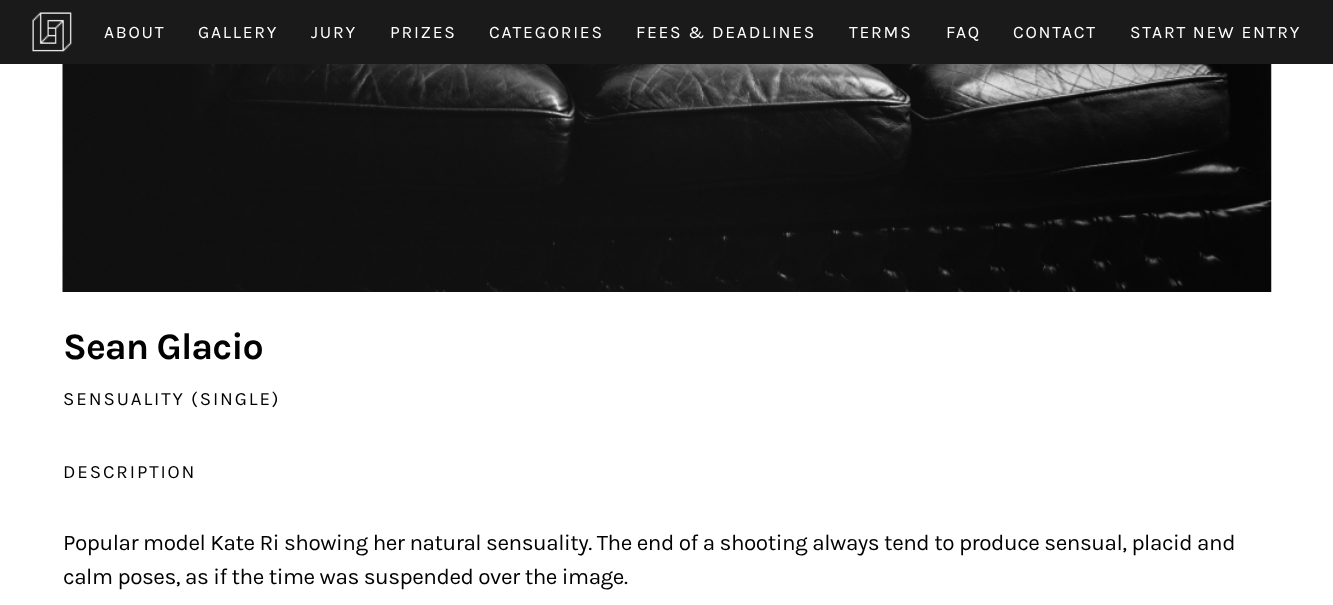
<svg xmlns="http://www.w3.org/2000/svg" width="1333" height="605">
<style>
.a{font:17.5px Karla;letter-spacing:1.75px;fill:#fff}
.b{font:bold 37.5px Karla;letter-spacing:-1px;fill:#000}
.c{font:18.75px Karla;letter-spacing:1.9px;fill:#000}
.d{font:22.5px Karla;letter-spacing:-0.45px;fill:#000}
</style>
<rect width="100%" height="100%" fill="#fff"/>
<path fill="#1a1a1a" d="M0 0h1333v64H0z"/>
<image href="1.png" x="32" y="12" width="40" height="40"/>
<image href="2.png" x="62" y="64" width="1210" height="228"/>
<text class="a" x="104" y="38">ABOUT</text>
<text class="a" x="198" y="38">GALLERY</text>
<text class="a" x="311" y="38">JURY</text>
<text class="a" x="390" y="38">PRIZES</text>
<text class="a" x="489" y="38">CATEGORIES</text>
<text class="a" x="636" y="38">FEES &amp; DEADLINES</text>
<text class="a" x="849" y="38">TERMS</text>
<text class="a" x="946" y="38">FAQ</text>
<text class="a" x="1013" y="38">CONTACT</text>
<text class="a" x="1130" y="38">START NEW ENTRY</text>
<text class="b" x="63" y="359">Sean Glacio</text>
<text class="c" x="63" y="405">SENSUALITY (SINGLE)</text>
<text class="c" x="63" y="478">DESCRIPTION</text>
<text class="d" x="63" y="550">Popular model Kate Ri showing her natural sensuality. The end of a shooting always tend to produce sensual, placid and</text>
<text class="d" x="63" y="584">calm poses, as if the time was suspended over the image.</text>
</svg>
